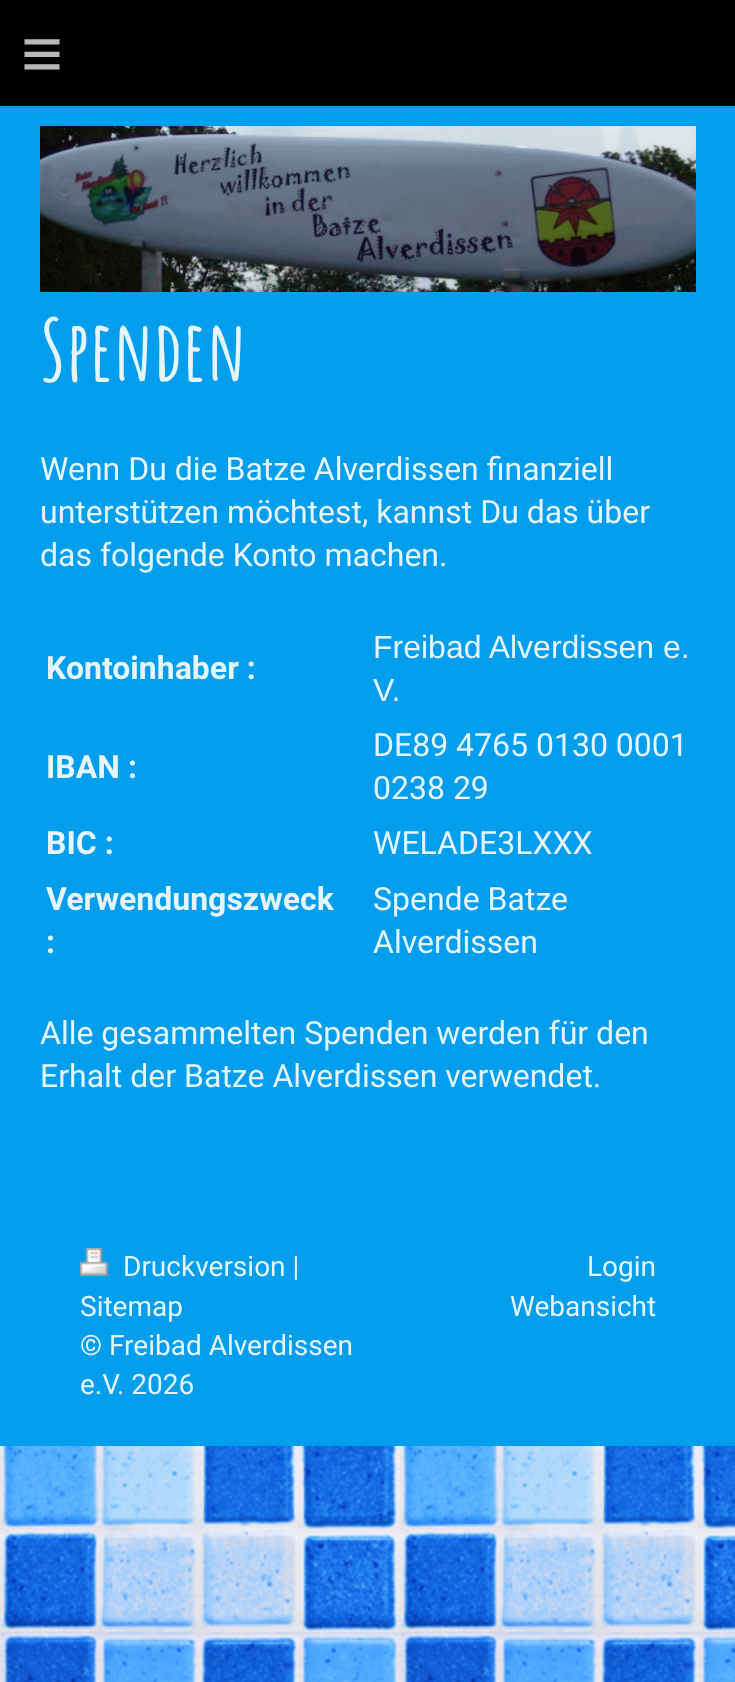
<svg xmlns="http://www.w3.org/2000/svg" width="735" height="1682">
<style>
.a{font:72px Liberation Sans;letter-spacing:21px;fill:#b8b8b8}
.b{font:bold 84px Amatic SC;fill:#e6f5fd}
.c{font:32px Roboto;fill:#e6f5fd}
.d{font:bold 32px Roboto;fill:#e6f5fd}
.e{font:32px Liberation Sans;fill:#e6f5fd}
.f{font:28px Roboto;fill:#e6f5fd}
</style>
<rect width="100%" height="100%" fill="#fff"/>
<image href="1.png" x="0" y="1446" width="735" height="236"/>
<path fill="#000" d="M0 0h735v106H0z"/>
<path fill="#019eed" d="M0 106h735v1340H0z"/>
<image href="2.png" x="40" y="126" width="656" height="166"/>
<image href="3.png" x="80" y="1248" width="29" height="28"/>
<text class="a" x="21" y="78">≡</text>
<text class="b" x="40" y="381">Spenden</text>
<text class="c" x="40" y="480">Wenn Du die Batze Alverdissen finanziell</text>
<text class="c" x="40" y="523">unterstützen möchtest, kannst Du das über</text>
<text class="c" x="40" y="566">das folgende Konto machen.</text>
<text class="d" x="46" y="679">Kontoinhaber :</text>
<text class="e" x="373" y="658">Freibad Alverdissen e.</text>
<text class="e" x="373" y="701">V.</text>
<text class="d" x="46" y="778">IBAN :</text>
<text class="c" x="373" y="756">DE89 4765 0130 0001</text>
<text class="c" x="373" y="799">0238 29</text>
<text class="d" x="46" y="854">BIC :</text>
<text class="c" x="373" y="854">WELADE3LXXX</text>
<text class="d" x="46" y="910">Verwendungszweck</text>
<text class="d" x="46" y="953">:</text>
<text class="c" x="373" y="910">Spende Batze</text>
<text class="c" x="373" y="953">Alverdissen</text>
<text class="c" x="40" y="1044">Alle gesammelten Spenden werden für den</text>
<text class="c" x="40" y="1087">Erhalt der Batze Alverdissen verwendet.</text>
<text class="f" x="123" y="1276">Druckversion |</text>
<text class="f" x="80" y="1316">Sitemap</text>
<text class="f" x="80" y="1355">© Freibad Alverdissen</text>
<text class="f" x="80" y="1394">e.V. 2026</text>
<text class="f" x="587" y="1276">Login</text>
<text class="f" x="510" y="1316">Webansicht</text>
</svg>
